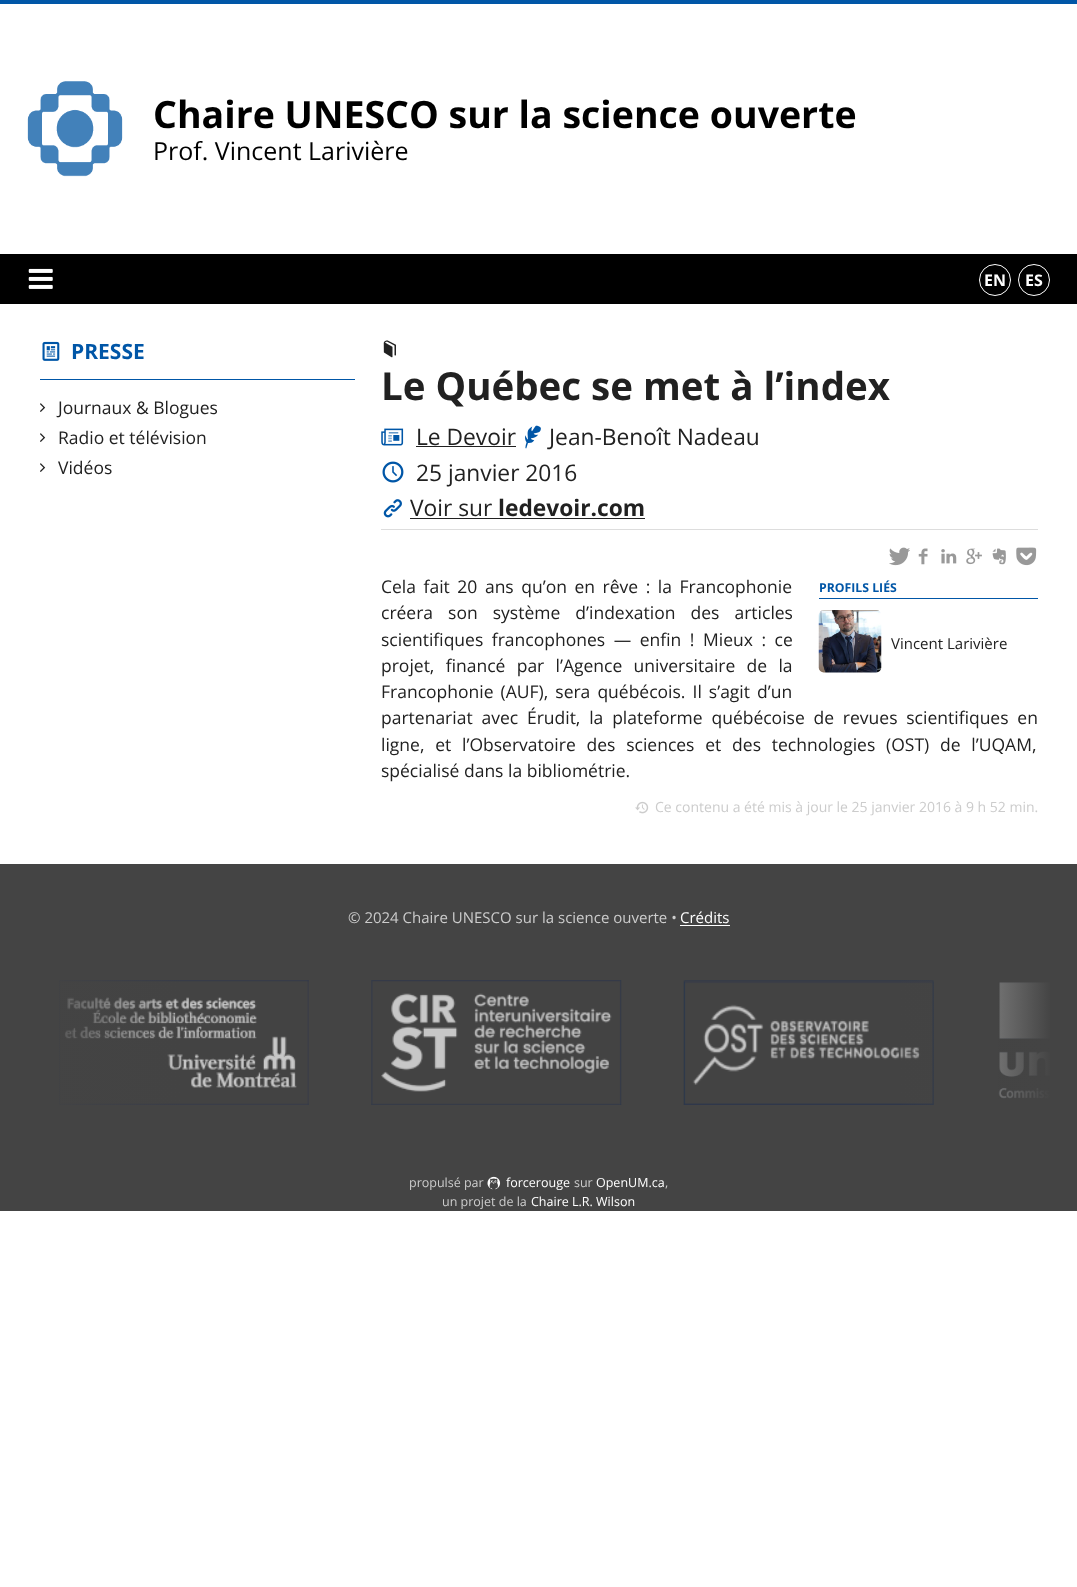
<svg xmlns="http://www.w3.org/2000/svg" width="1077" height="1587">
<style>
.a{font:bold 37.5px Open Sans;fill:#000}
.b{font:25px Open Sans;fill:#000}
.c{font:bold 16px Open Sans;fill:#fff}
.d{font:bold 21px Open Sans;fill:#0056a7}
.e{font:17.5px Open Sans;fill:#212121}
.f{font:bold 38.5px Open Sans;fill:#212121}
.g{font:22.75px Open Sans;fill:#212121}
.h{font:bold 22.75px Open Sans;fill:#212121}
.i{font:bold 12.25px Open Sans;fill:#0056a7}
.j{font:15px Open Sans;fill:#212121}
.k{font:14px Open Sans;fill:#ccc}
.l{font:15px Open Sans;fill:#ccc}
.m{font:15px Open Sans;fill:#fff}
.n{font:12.5px Open Sans;fill:#ccc}
.o{font:12.5px Open Sans;fill:#fff}
</style>
<defs>
<linearGradient id="g1" gradientUnits="userSpaceOnUse" x1="28" y1="1043" x2="184" y2="1043"><stop offset="0" stop-color="#444"/><stop offset="1" stop-color="#444" stop-opacity="0"/></linearGradient>
<linearGradient id="g2" gradientUnits="userSpaceOnUse" x1="1051" y1="1042" x2="894" y2="1042"><stop offset="0" stop-color="#444"/><stop offset="1" stop-color="#444" stop-opacity="0"/></linearGradient>
</defs>
<rect width="100%" height="100%" fill="#fff"/>
<path fill="#0056a7" d="M0 0h1077v4H0z"/>
<image href="1.png" x="27" y="81" width="96" height="96"/>
<path fill="#000" d="M0 254h1077v50H0z"/>
<image href="2.png" x="28" y="268" width="25" height="21"/>
<circle fill="none" stroke="#fff" cx="995" cy="280" r="15.5"/>
<circle fill="none" stroke="#fff" cx="1034" cy="280" r="15.5"/>
<path fill="#0056a7" d="M40 379h315v1H40z"/>
<image href="3.png" x="42" y="341" width="18" height="20"/>
<image href="4.png" x="40" y="403" width="6" height="9"/>
<image href="4.png" x="40" y="433" width="6" height="9"/>
<image href="4.png" x="40" y="463" width="6" height="9"/>
<image href="5.png" x="383" y="340" width="13" height="18"/>
<image href="6.png" x="381" y="428" width="23" height="18"/>
<path fill="#212121" d="M416 446h100v1H416z"/>
<image href="7.png" x="525" y="425" width="16" height="24"/>
<image href="8.png" x="382" y="461" width="22" height="22"/>
<image href="9.png" x="383" y="499" width="19" height="19"/>
<path fill="#212121" d="M410 518h235v1H410z"/>
<path fill="#ddd" d="M381 529h657v1H381z"/>
<image href="10.png" x="889" y="547" width="21" height="19"/>
<image href="11.png" x="918" y="548" width="10" height="17"/>
<image href="12.png" x="941" y="549" width="16" height="15"/>
<image href="13.png" x="966" y="548" width="16" height="17"/>
<image href="14.png" x="992" y="548" width="14" height="17"/>
<image href="15.png" x="1016" y="547" width="21" height="19"/>
<path fill="#0056a7" d="M819 598h219v1H819z"/>
<image href="16.png" x="818" y="610" width="64" height="63"/>
<image href="17.png" x="635" y="801" width="14" height="13"/>
<path fill="#444" d="M0 864h1077v347H0z"/>
<path fill="#fff" d="M680 925h50v1H680z"/>
<image href="18.png" x="59" y="980" width="250" height="125"/>
<image href="19.png" x="371" y="980" width="251" height="125"/>
<image href="20.png" x="683" y="980" width="251" height="125"/>
<image href="21.png" x="998" y="982" width="52" height="117"/>
<path fill="url(#g1)" d="M59 980h121v125H59z"/>
<path fill="url(#g2)" d="M901 980h149v125H901z"/>
<image href="22.png" x="487" y="1176" width="14" height="14"/>
<text class="a" x="153" y="128">Chaire UNESCO sur la science ouverte</text>
<text class="b" x="153" y="160">Prof. Vincent Larivière</text>
<text class="c" x="984" y="286">EN</text>
<text class="c" x="1025" y="286">ES</text>
<text class="d" x="71" y="359">PRESSE</text>
<text class="e" x="58" y="414">Journaux &amp; Blogues</text>
<text class="e" x="58" y="444">Radio et télévision</text>
<text class="e" x="58" y="474">Vidéos</text>
<text class="f" x="381" y="400">Le Québec se met à l’index</text>
<text class="g" x="416" y="445">Le Devoir</text>
<text class="g" x="549" y="445">Jean-Benoît Nadeau</text>
<text class="g" x="416" y="481">25 janvier 2016</text>
<text class="g" x="410" y="516">Voir sur</text>
<text class="h" x="498" y="516">ledevoir.com</text>
<text class="e" x="381" y="593" word-spacing="3">Cela fait 20 ans qu’on en rêve : la Francophonie</text>
<text class="e" x="381" y="619" word-spacing="10.5">créera son système d’indexation des articles</text>
<text class="e" x="381" y="646" word-spacing="4">scientifiques francophones — enfin ! Mieux : ce</text>
<text class="e" x="381" y="672" word-spacing="6.75">projet, financé par l’Agence universitaire de la</text>
<text class="e" x="381" y="698" word-spacing="2.5">Francophonie (AUF), sera québécois. Il s’agit d’un</text>
<text class="e" x="381" y="724" word-spacing="4.25">partenariat avec Érudit, la plateforme québécoise de revues scientifiques en</text>
<text class="e" x="381" y="751" word-spacing="6.25">ligne, et l’Observatoire des sciences et des technologies (OST) de l’UQAM,</text>
<text class="e" x="381" y="777">spécialisé dans la bibliométrie.</text>
<text class="i" x="819" y="592">PROFILS LIÉS</text>
<text class="j" x="891" y="649">Vincent Larivière</text>
<text class="k" x="655" y="812">Ce contenu a été mis à jour le 25 janvier 2016 à 9 h 52 min.</text>
<text class="l" x="348" y="923">© 2024 Chaire UNESCO sur la science ouverte •</text>
<text class="m" x="680" y="923">Crédits</text>
<text class="n" x="409" y="1187">propulsé par</text>
<text class="o" x="506" y="1187">forcerouge</text>
<text class="n" x="574" y="1187">sur</text>
<text class="o" x="596" y="1187">OpenUM.ca</text>
<text class="n" x="665" y="1187">,</text>
<text class="n" x="442" y="1206">un projet de la</text>
<text class="o" x="531" y="1206">Chaire L.R. Wilson</text>
</svg>
